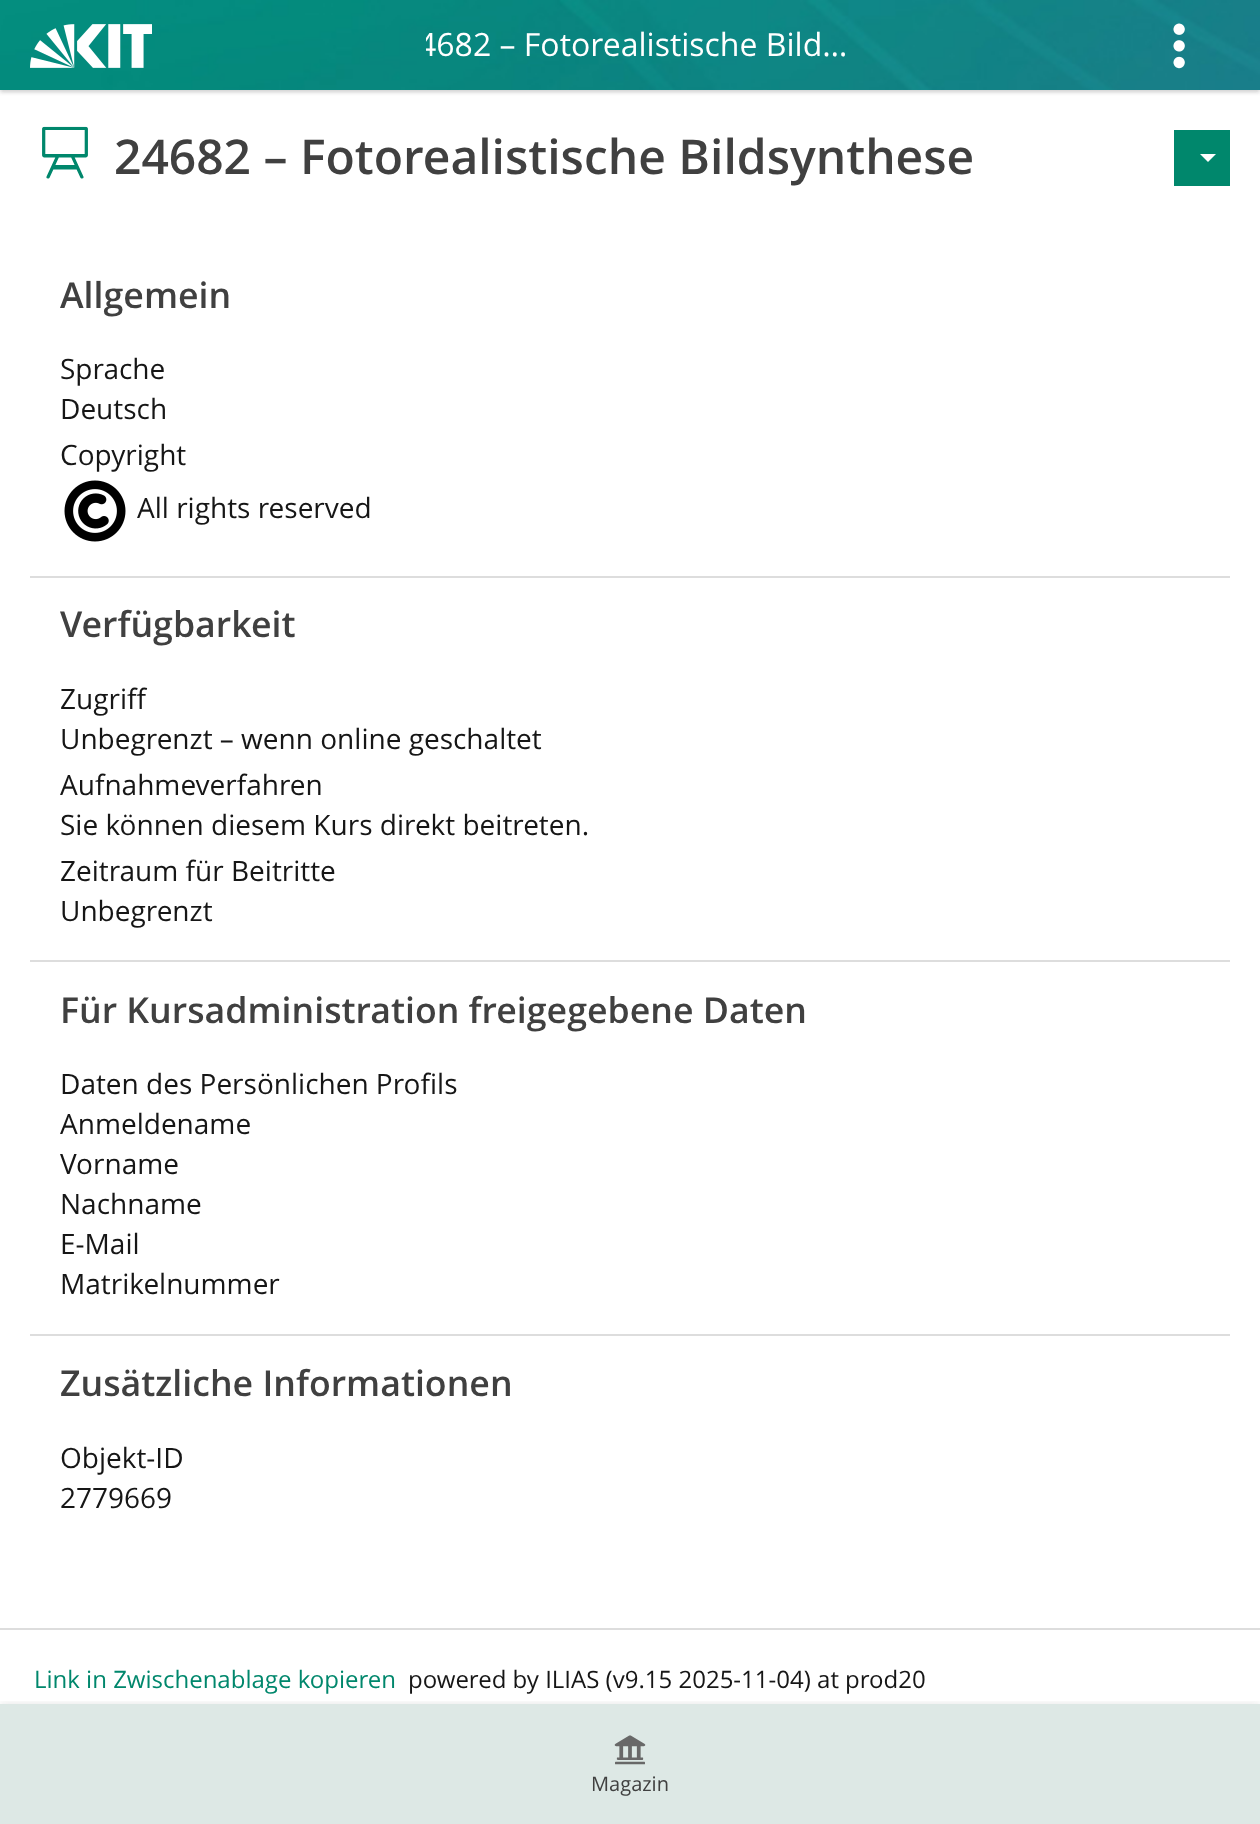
<svg xmlns="http://www.w3.org/2000/svg" width="1260" height="1824">
<style>
.a{font:32px Open Sans;fill:#fff}
.b{font:600 48px Open Sans;fill:#404040}
.c{font:600 35.7px Open Sans;fill:#404040}
.d{font:28px Open Sans;fill:#161616}
.e{font:24px Open Sans;fill:#00876c}
.f{font:24px Open Sans;fill:#161616}
.g{font:20px Open Sans;fill:#404040}
</style>
<defs>
<clipPath id="clip1"><path d="M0 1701h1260v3H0z"/></clipPath>
<clipPath id="clip2"><path d="M426 16h440v58H426z"/></clipPath>
</defs>
<rect width="100%" height="100%" fill="#fff"/>
<path fill="#0000001a" filter="blur(2px)" d="M0 2h1260v90H0z"/>
<path fill="#0000001a" filter="blur(2px)" d="M0 2h1260v90H0z"/>
<image href="1.png" x="0" y="0" width="1260" height="90"/>
<image href="2.png" x="30" y="24" width="122" height="44"/>
<image href="3.png" x="1173" y="23" width="12" height="46"/>
<image href="4.png" x="42" y="126" width="46" height="53"/>
<path fill="#00876c" d="M1174 130h56v56H1174z"/>
<path fill="#fff" d="M1200 154h16l-8 8z"/>
<image href="5.png" x="64" y="480" width="62" height="62"/>
<path fill="#ddd" d="M30 576h1200v2H30z"/>
<path fill="#ddd" d="M30 960h1200v2H30z"/>
<path fill="#ddd" d="M30 1334h1200v2H30z"/>
<path fill="#ddd" d="M0 1628h1260v2H0z"/>
<path fill="#dde8e5" d="M0 1704h1260v120H0z"/>
<g clip-path="url(#clip1)">
<path fill="#0000001a" filter="blur(4px)" d="M0 1704h1260v120H0z"/>
</g>
<image href="6.png" x="614" y="1735" width="32" height="30"/>
<g clip-path="url(#clip2)">
<text class="a" x="418" y="56">4682 – Fotorealistische Bild…</text>
</g>
<text class="b" x="114" y="174">24682 – Fotorealistische Bildsynthese</text>
<text class="c" x="60" y="308">Allgemein</text>
<text class="d" x="60" y="379">Sprache</text>
<text class="d" x="60" y="419">Deutsch</text>
<text class="d" x="60" y="465">Copyright</text>
<text class="d" x="137" y="518">All rights reserved</text>
<text class="c" x="60" y="637">Verfügbarkeit</text>
<text class="d" x="60" y="709">Zugriff</text>
<text class="d" x="60" y="749">Unbegrenzt – wenn online geschaltet</text>
<text class="d" x="60" y="795">Aufnahmeverfahren</text>
<text class="d" x="60" y="835">Sie können diesem Kurs direkt beitreten.</text>
<text class="d" x="60" y="881">Zeitraum für Beitritte</text>
<text class="d" x="60" y="921">Unbegrenzt</text>
<text class="c" x="60" y="1023">Für Kursadministration freigegebene Daten</text>
<text class="d" x="60" y="1094">Daten des Persönlichen Profils</text>
<text class="d" x="60" y="1134">Anmeldename</text>
<text class="d" x="60" y="1174">Vorname</text>
<text class="d" x="60" y="1214">Nachname</text>
<text class="d" x="60" y="1254">E-Mail</text>
<text class="d" x="60" y="1294">Matrikelnummer</text>
<text class="c" x="60" y="1396">Zusätzliche Informationen</text>
<text class="d" x="60" y="1468">Objekt-ID</text>
<text class="d" x="60" y="1508">2779669</text>
<text class="e" x="34" y="1688">Link in Zwischenablage kopieren</text>
<text class="f" x="408" y="1688">powered by ILIAS (v9.15 2025-11-04) at prod20</text>
<text class="g" x="591" y="1791">Magazin</text>
</svg>
